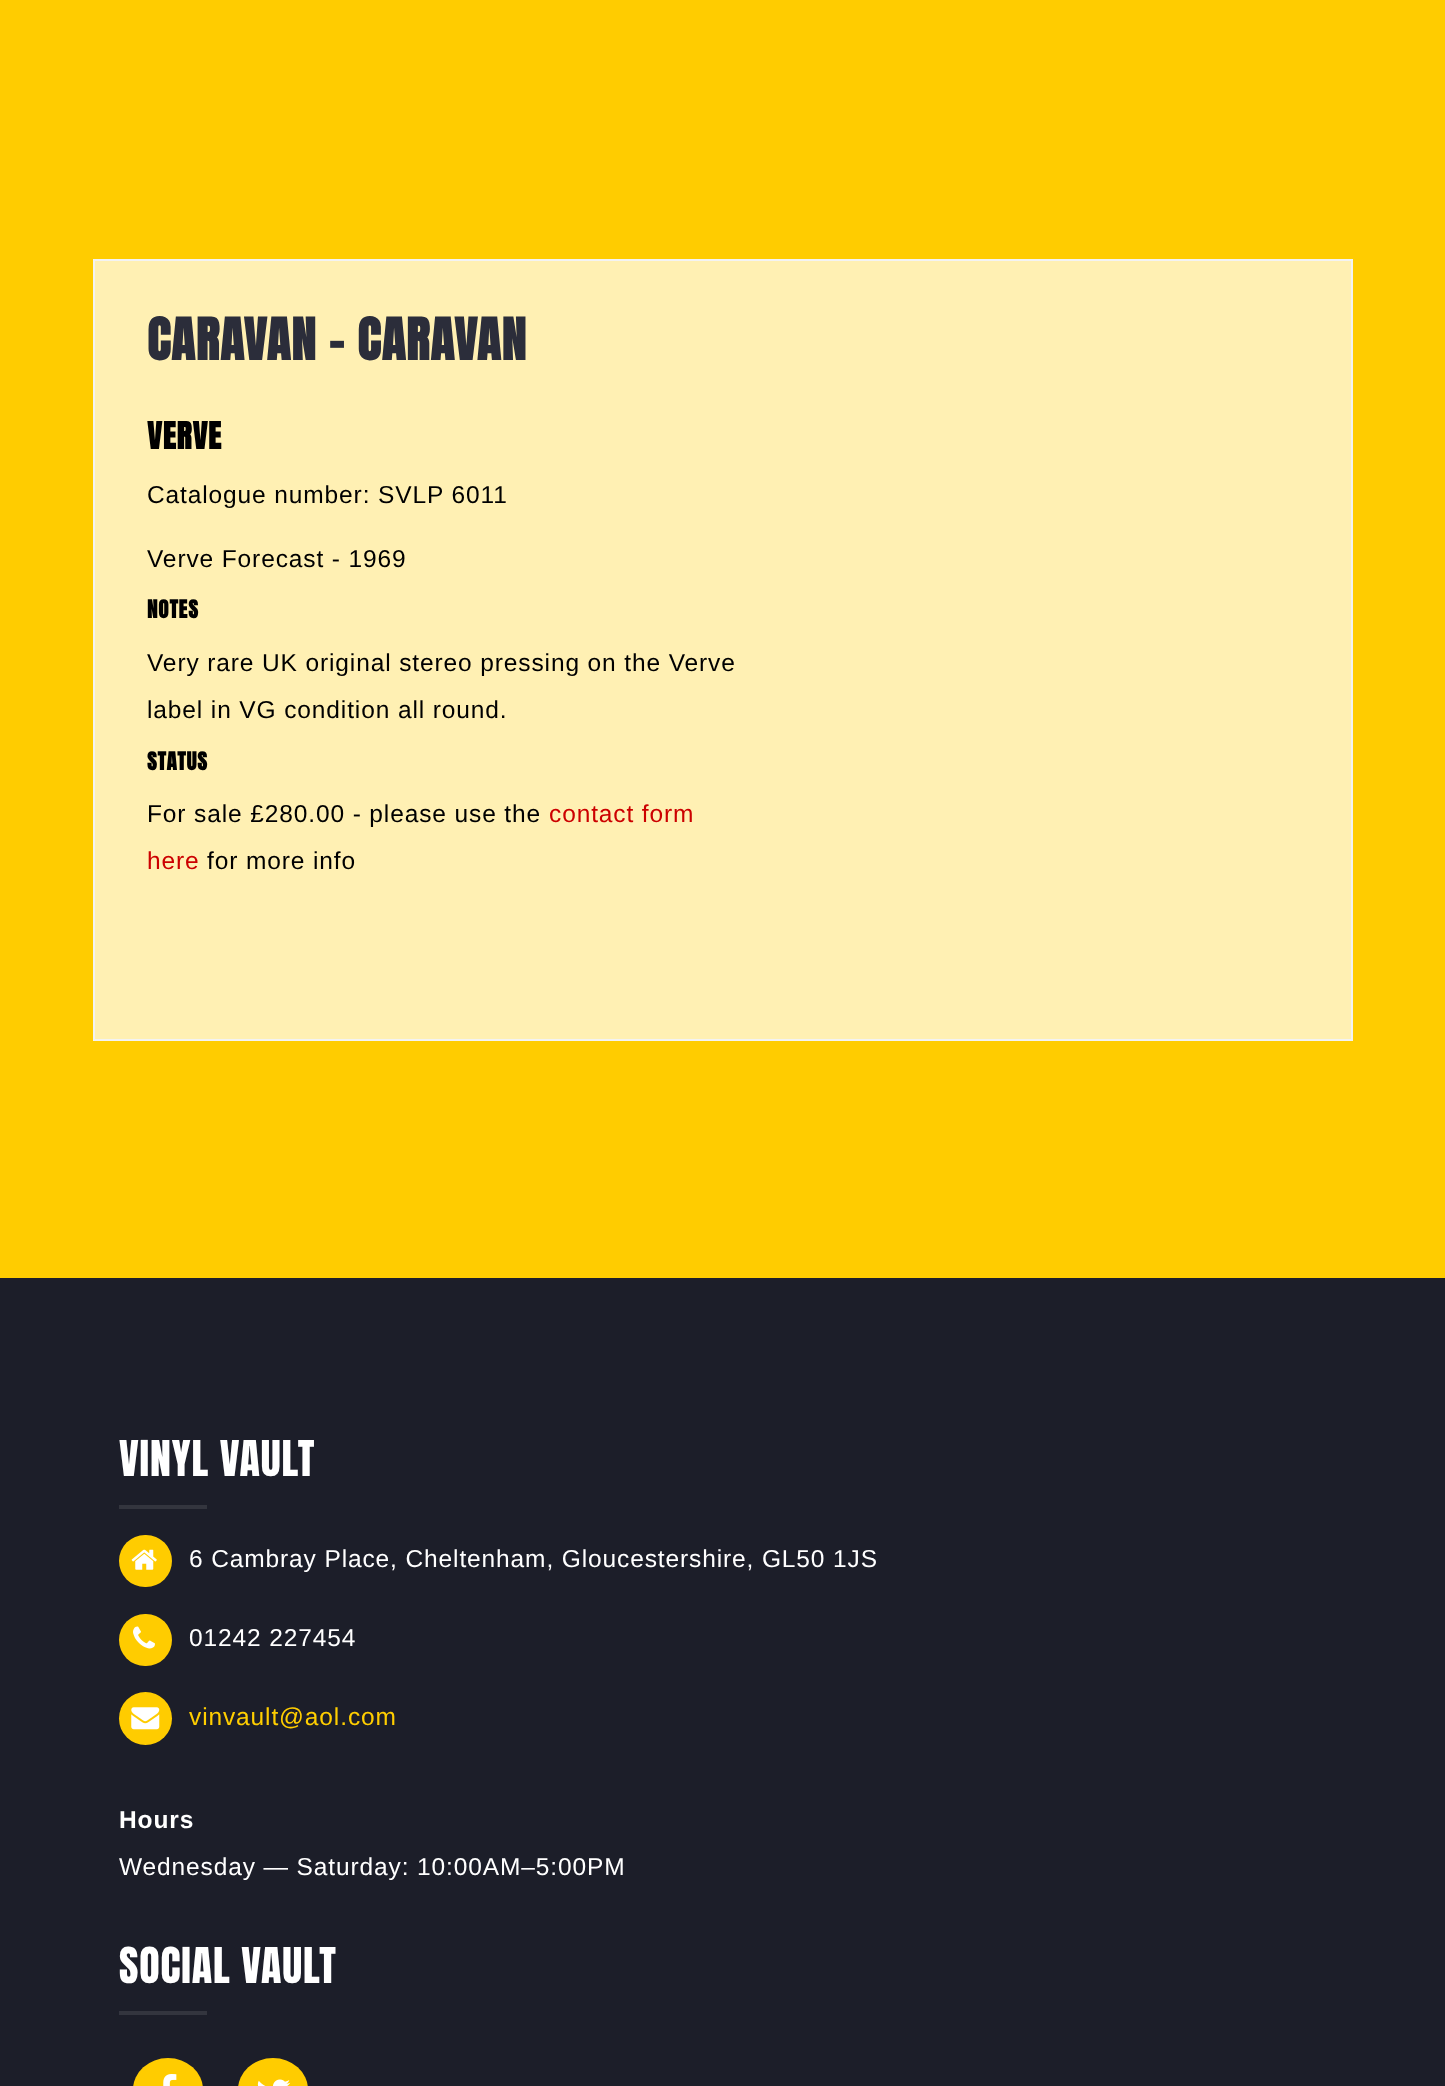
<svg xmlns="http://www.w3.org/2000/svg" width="1445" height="2086">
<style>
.a{font:bold 49px Anton;letter-spacing:0.88px;fill:#2b2d3a}
.b{font:bold 31.5px Anton;letter-spacing:0.88px;fill:#000}
.c{font:24.5px Liberation Sans;letter-spacing:0.88px;fill:#000}
.d{font:bold 21px Anton;letter-spacing:0.88px;fill:#000}
.e{font:24.5px Liberation Sans;letter-spacing:0.88px;fill:#c00}
.f{font:42px Anton;letter-spacing:0.88px;fill:#fff}
.g{font:24.5px Liberation Sans;letter-spacing:0.88px;fill:#fff}
.h{font:24.5px Liberation Sans;letter-spacing:0.88px;fill:#ffce00}
.i{font:bold 24.5px Liberation Sans;letter-spacing:0.88px;fill:#fff}
</style>
<rect width="100%" height="100%" fill="#fc0"/>
<path fill="#fff0b3" stroke="#f3f3f3" stroke-width="2" d="M94 260h1258v780H94z"/>
<path fill="#1c1e29" d="M0 1278h1445v808H0z"/>
<path fill="#33353e" d="M119 1505h88v4H119z"/>
<rect fill="#fc0" x="119" y="1535" width="53" height="52" rx="26"/>
<image href="1.png" x="131" y="1549" width="26" height="21"/>
<rect fill="#fc0" x="119" y="1614" width="53" height="52" rx="26"/>
<image href="2.png" x="133" y="1626" width="22" height="23"/>
<circle fill="#fc0" cx="145.5" cy="1718.5" r="26.5"/>
<image href="3.png" x="131" y="1707" width="29" height="23"/>
<path fill="#33353e" d="M119 2011h88v4H119z"/>
<rect fill="#fc0" x="133" y="2058" width="70" height="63" rx="35"/>
<image href="4.png" x="163" y="2074" width="14" height="12"/>
<rect fill="#fc0" x="238" y="2058" width="70" height="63" rx="35"/>
<image href="5.png" x="257" y="2079" width="34" height="7"/>
<text class="a" x="147" y="360">CARAVAN - CARAVAN</text>
<text class="b" x="147" y="449">VERVE</text>
<text class="c" x="147" y="503">Catalogue number: SVLP 6011</text>
<text class="c" x="147" y="567">Verve Forecast - 1969</text>
<text class="d" x="147" y="618">NOTES</text>
<text class="c" x="147" y="671">Very rare UK original stereo pressing on the Verve</text>
<text class="c" x="147" y="718">label in VG condition all round.</text>
<text class="d" x="147" y="770">STATUS</text>
<text class="c" x="147" y="822">For sale £280.00 - please use the</text>
<text class="e" x="549" y="822">contact form</text>
<text class="e" x="147" y="869">here</text>
<text class="c" x="207" y="869">for more info</text>
<text class="f" x="119" y="1476">VINYL VAULT</text>
<text class="g" x="189" y="1567">6 Cambray Place, Cheltenham, Gloucestershire, GL50 1JS</text>
<text class="g" x="189" y="1646">01242 227454</text>
<text class="h" x="189" y="1725">vinvault@aol.com</text>
<text class="i" x="119" y="1828">Hours</text>
<text class="g" x="119" y="1875">Wednesday — Saturday: 10:00AM–5:00PM</text>
<text class="f" x="119" y="1983">SOCIAL VAULT</text>
</svg>
